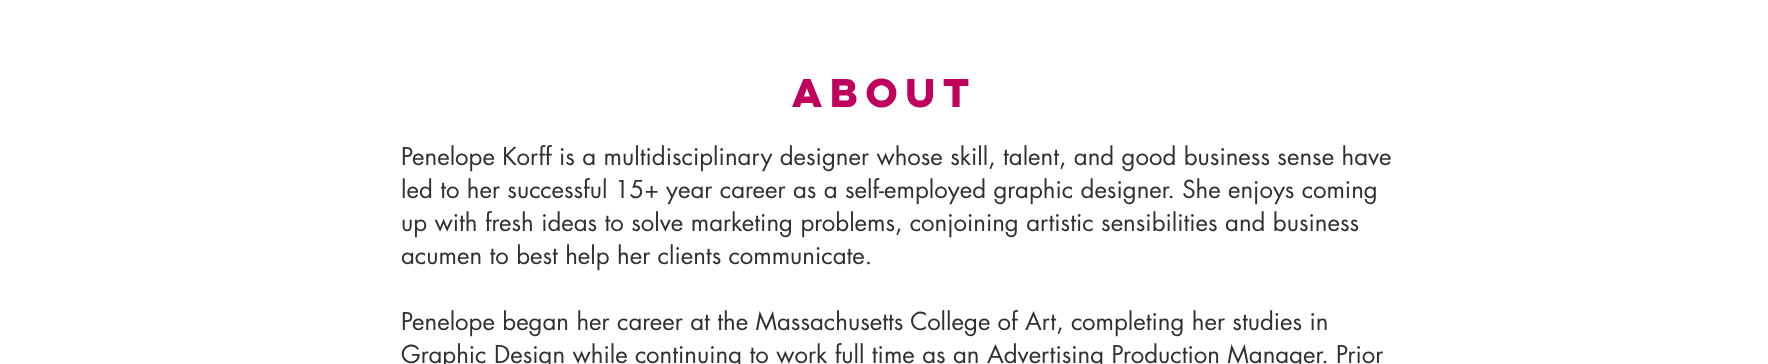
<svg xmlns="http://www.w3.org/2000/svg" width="1768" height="364">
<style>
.a{font:bold 36px 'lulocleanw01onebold';fill:#c0005d}
.b{font:24px futura;fill:#303030}
</style>
<rect width="100%" height="100%" fill="#fff"/>
<text class="a" x="792" y="107">about</text>
<text class="b" x="401" y="165">Penelope Korff is a multidisciplinary designer whose skill, talent, and good business sense have</text>
<text class="b" x="401" y="198">led to her successful 15+ year career as a self-employed graphic designer. She enjoys coming</text>
<text class="b" x="401" y="231">up with fresh ideas to solve marketing problems, conjoining artistic sensibilities and business</text>
<text class="b" x="401" y="264">acumen to best help her clients communicate.</text>
<text class="b" x="401" y="330">Penelope began her career at the Massachusetts College of Art, completing her studies in</text>
<text class="b" x="401" y="363">Graphic Design while continuing to work full time as an Advertising Production Manager. Prior</text>
</svg>
